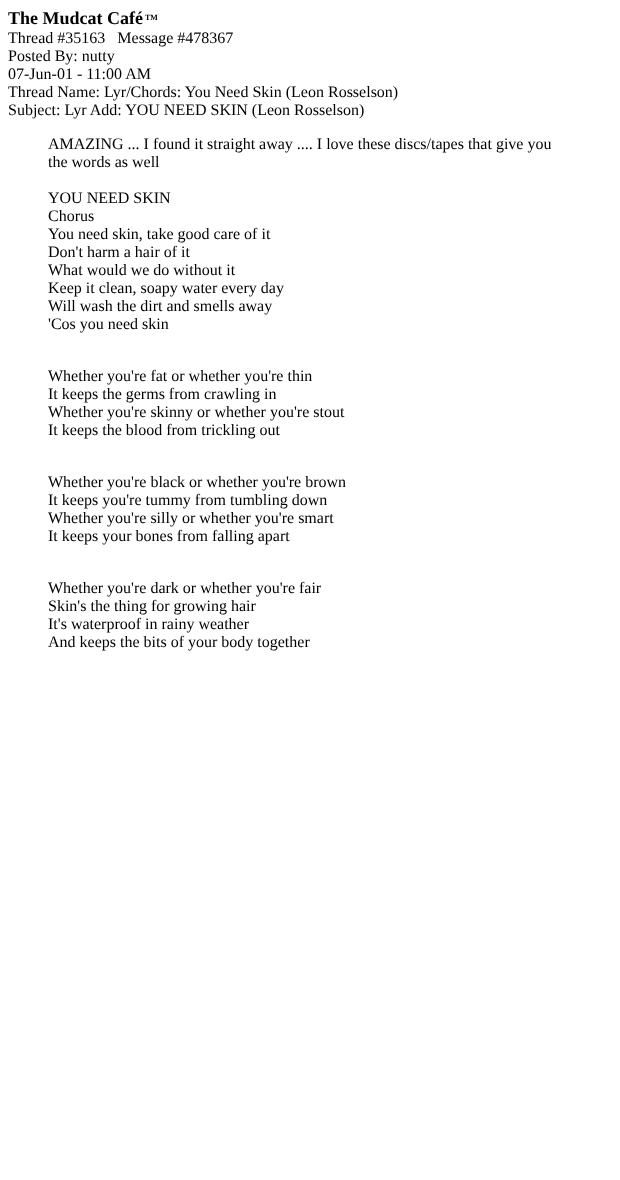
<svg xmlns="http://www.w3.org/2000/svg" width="620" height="1180">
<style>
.a{font:bold 18px Liberation Serif;fill:#000}
.b{font:bold 8px Liberation Serif;fill:#000}
.c{font:16px Liberation Serif;fill:#000}
</style>
<rect width="100%" height="100%" fill="#fff"/>
<text class="a" x="8" y="24">The Mudcat Café</text>
<text class="b" x="145" y="20">TM</text>
<text class="c" xml:space="preserve" x="8" y="43">Thread #35163   Message #478367</text>
<text class="c" x="8" y="61">Posted By: nutty</text>
<text class="c" x="8" y="79">07-Jun-01 - 11:00 AM</text>
<text class="c" x="8" y="97">Thread Name: Lyr/Chords: You Need Skin (Leon Rosselson)</text>
<text class="c" x="8" y="115">Subject: Lyr Add: YOU NEED SKIN (Leon Rosselson)</text>
<text class="c" x="48" y="149">AMAZING ... I found it straight away .... I love these discs/tapes that give you</text>
<text class="c" x="48" y="167">the words as well</text>
<text class="c" x="48" y="203">YOU NEED SKIN</text>
<text class="c" x="48" y="221">Chorus</text>
<text class="c" x="48" y="239">You need skin, take good care of it</text>
<text class="c" x="48" y="257">Don't harm a hair of it</text>
<text class="c" x="48" y="275">What would we do without it</text>
<text class="c" x="48" y="293">Keep it clean, soapy water every day</text>
<text class="c" x="48" y="311">Will wash the dirt and smells away</text>
<text class="c" x="48" y="329">'Cos you need skin</text>
<text class="c" x="48" y="381">Whether you're fat or whether you're thin</text>
<text class="c" x="48" y="399">It keeps the germs from crawling in</text>
<text class="c" x="48" y="417">Whether you're skinny or whether you're stout</text>
<text class="c" x="48" y="435">It keeps the blood from trickling out</text>
<text class="c" x="48" y="487">Whether you're black or whether you're brown</text>
<text class="c" x="48" y="505">It keeps you're tummy from tumbling down</text>
<text class="c" x="48" y="523">Whether you're silly or whether you're smart</text>
<text class="c" x="48" y="541">It keeps your bones from falling apart</text>
<text class="c" x="48" y="593">Whether you're dark or whether you're fair</text>
<text class="c" x="48" y="611">Skin's the thing for growing hair</text>
<text class="c" x="48" y="629">It's waterproof in rainy weather</text>
<text class="c" x="48" y="647">And keeps the bits of your body together</text>
</svg>
